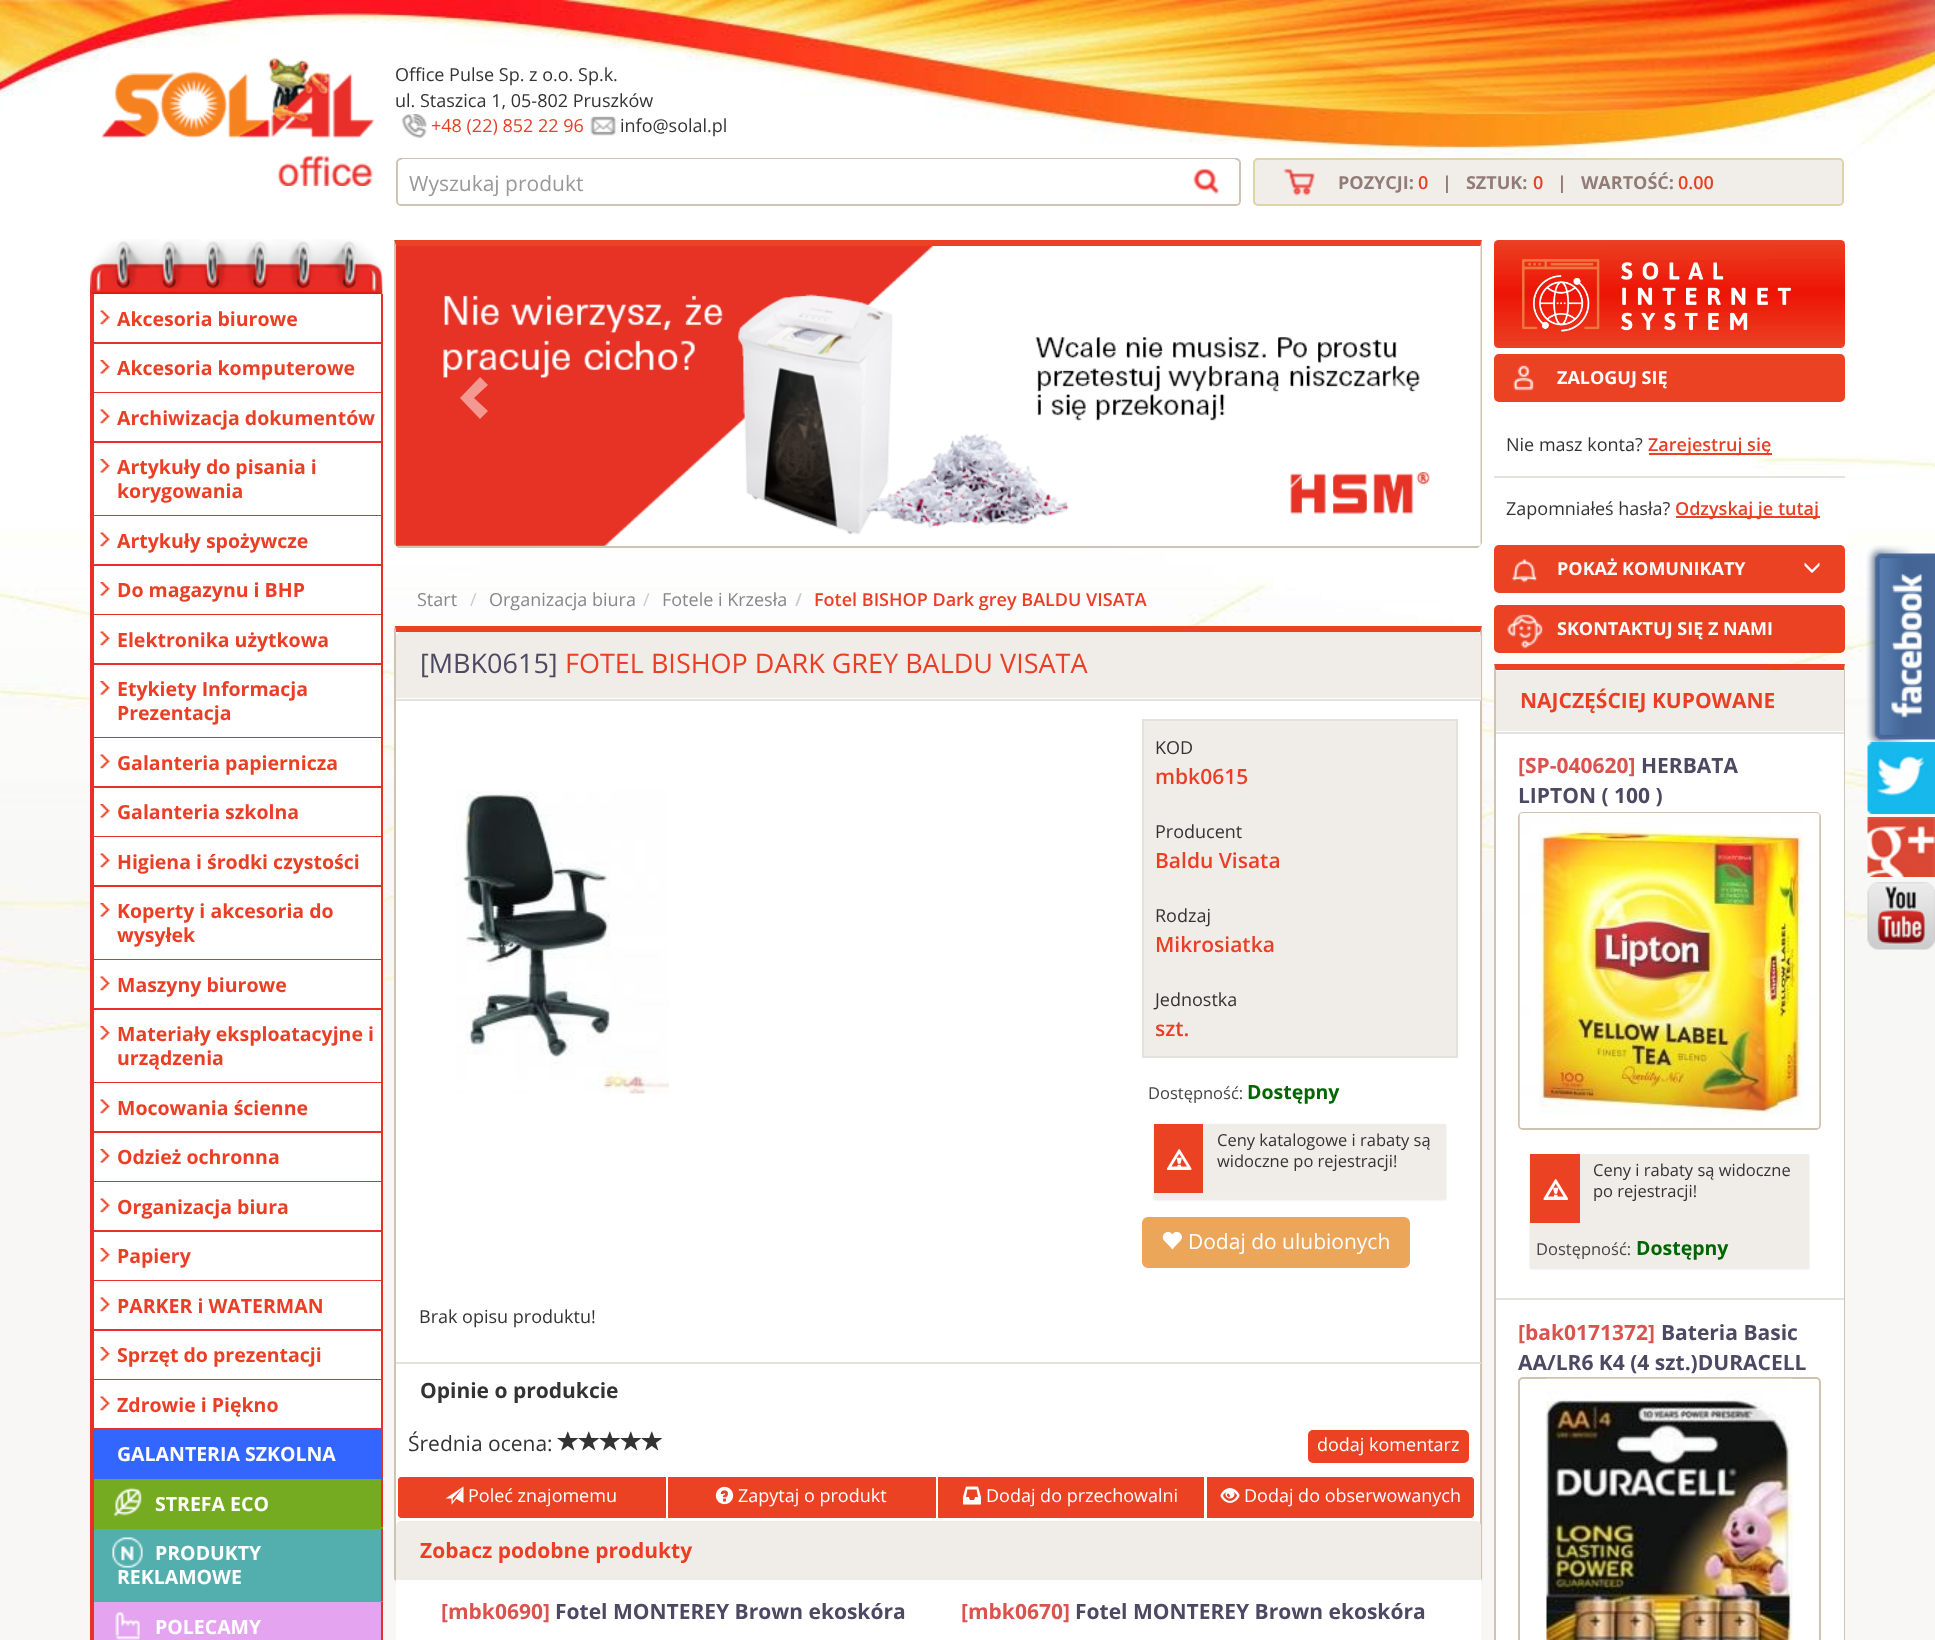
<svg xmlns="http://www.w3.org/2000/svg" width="1935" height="1640">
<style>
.a{font:18px Open Sans;fill:#333}
.b{font:18px Open Sans;fill:#ea3e25}
.c{font:21px Open Sans;fill:#999}
.d{font:bold 18px Open Sans;fill:#927c78}
.e{font:600 18px Open Sans;fill:#ea3e25}
.f{font:bold 19.5px Open Sans;fill:#ea3e25}
.g{font:bold 19.5px Open Sans;fill:#fff}
.h{font:18px Open Sans;fill:#888}
.i{font:18px Open Sans;fill:#ccc}
.j{font:600 18px Open Sans;fill:#ccc}
.k{font:27px Open Sans;fill:#4d4962}
.l{font:27px Open Sans;fill:#ea3e25}
.m{font:600 21px Open Sans;fill:#ea3e25}
.n{font:16.5px Open Sans;fill:#454545}
.o{font:bold 19.5px Open Sans;fill:#060}
.p{font:16.5px Open Sans;fill:#333}
.q{font:21px Open Sans;fill:#fff}
.r{font:bold 21px Open Sans;fill:#333}
.s{font:21px Open Sans;fill:#333}
.t{font:18px Open Sans;fill:#fff}
.u{font:bold 21px Open Sans;fill:#ea3e25}
.v{font:bold 21px Open Sans;fill:#d9534f}
.w{font:bold 21px Open Sans;fill:#4d4962}
.x{font:bold 18px Open Sans;fill:#fff}
</style>
<defs>
<clipPath id="clip1"><rect x="398" y="159" width="841" height="45" rx="3"/></clipPath>
</defs>
<rect width="100%" height="100%" fill="#f8f7f5"/>
<image href="1.png" x="0" y="219" width="1935" height="820"/>
<image href="2.png" x="0" y="0" width="1935" height="219"/>
<image href="3.png" x="101" y="58" width="273" height="128"/>
<image href="4.png" x="401" y="114" width="26" height="24"/>
<image href="5.png" x="590" y="116" width="26" height="20"/>
<rect fill="none" stroke="#d1c3b3" stroke-width="2" x="397" y="159" width="843" height="46" rx="4"/>
<g clip-path="url(#clip1)">
<path fill="#fff" d="M404 159h769v48h-769c-3.5 0-6-2.5-6-6v-36c0-3.5 2.5-6 6-6z"/>
<path fill="#fff" d="M1173 159h60c3.5 0 6 2.5 6 6v36c0 3.5-2.5 6-6 6h-60z"/>
</g>
<image href="6.png" x="1193" y="168" width="26" height="27"/>
<rect fill="#f1eee9" x="1253" y="158" width="591" height="48" rx="5"/>
<image href="7.png" x="1283" y="168" width="32" height="28"/>
<rect fill="none" stroke="#dfd4a7" stroke-width="2" x="1254" y="159" width="589" height="46" rx="4"/>
<image href="8.png" x="90" y="239" width="293" height="55"/>
<path fill="#ea2e29" d="M90 294h2v1346H90z"/>
<image href="9.png" x="100" y="310" width="10" height="15"/>
<path fill="#ea2e29" d="M381 294h2v1346H381z"/>
<path fill="#ea2e29" d="M92 342h291v2H92z"/>
<path fill="#ea2e29" d="M92 294h2v50H92z"/>
<image href="10.png" x="100" y="360" width="10" height="14"/>
<path fill="#ea2e29" d="M92 392h291v1H92z"/>
<path fill="#ea2e29" d="M92 344h2v49H92z"/>
<image href="9.png" x="100" y="409" width="10" height="15"/>
<path fill="#ea2e29" d="M92 441h291v2H92z"/>
<path fill="#ea2e29" d="M92 393h2v50H92z"/>
<image href="10.png" x="100" y="459" width="10" height="14"/>
<path fill="#ea2e29" d="M92 515h291v1H92z"/>
<path fill="#ea2e29" d="M92 443h2v73H92z"/>
<path fill="#fff" d="M94 531h29v18H94z"/>
<image href="9.png" x="100" y="532" width="10" height="15"/>
<path fill="#ea2e29" d="M92 564h291v2H92z"/>
<path fill="#ea2e29" d="M92 516h2v50H92z"/>
<path fill="#fff" d="M94 576h287v38H94z"/>
<image href="10.png" x="100" y="582" width="10" height="14"/>
<path fill="#ea2e29" d="M92 614h291v1H92z"/>
<path fill="#ea2e29" d="M92 566h2v49H92z"/>
<path fill="#fff" d="M94 615h287v48H94z"/>
<image href="9.png" x="100" y="631" width="10" height="15"/>
<path fill="#ea2e29" d="M92 663h291v2H92z"/>
<path fill="#ea2e29" d="M92 615h2v50H92z"/>
<path fill="#fff" d="M94 665h287v72H94z"/>
<image href="10.png" x="100" y="681" width="10" height="14"/>
<path fill="#ea2e29" d="M92 737h291v1H92z"/>
<path fill="#ea2e29" d="M92 665h2v73H92z"/>
<path fill="#fff" d="M94 738h287v48H94z"/>
<image href="9.png" x="100" y="754" width="10" height="15"/>
<path fill="#ea2e29" d="M92 786h291v2H92z"/>
<path fill="#ea2e29" d="M92 738h2v50H92z"/>
<path fill="#fff" d="M94 788h287v48H94z"/>
<image href="10.png" x="100" y="804" width="10" height="14"/>
<path fill="#ea2e29" d="M92 836h291v1H92z"/>
<path fill="#ea2e29" d="M92 788h2v49H92z"/>
<path fill="#fff" d="M94 837h287v48H94z"/>
<image href="9.png" x="100" y="853" width="10" height="15"/>
<path fill="#ea2e29" d="M92 885h291v2H92z"/>
<path fill="#ea2e29" d="M92 837h2v50H92z"/>
<path fill="#fff" d="M94 887h287v72H94z"/>
<image href="10.png" x="100" y="903" width="10" height="14"/>
<path fill="#ea2e29" d="M92 959h291v1H92z"/>
<path fill="#ea2e29" d="M92 887h2v73H92z"/>
<path fill="#fff" d="M94 960h287v48H94z"/>
<image href="9.png" x="100" y="976" width="10" height="15"/>
<path fill="#ea2e29" d="M92 1008h291v2H92z"/>
<path fill="#ea2e29" d="M92 960h2v50H92z"/>
<path fill="#fff" d="M94 1010h287v72H94z"/>
<image href="10.png" x="100" y="1026" width="10" height="14"/>
<path fill="#ea2e29" d="M92 1082h291v1H92z"/>
<path fill="#ea2e29" d="M92 1010h2v73H92z"/>
<path fill="#fff" d="M94 1083h287v48H94z"/>
<image href="9.png" x="100" y="1099" width="10" height="15"/>
<path fill="#ea2e29" d="M92 1131h291v2H92z"/>
<path fill="#ea2e29" d="M92 1083h2v50H92z"/>
<path fill="#fff" d="M94 1133h287v48H94z"/>
<image href="10.png" x="100" y="1149" width="10" height="14"/>
<path fill="#ea2e29" d="M92 1181h291v1H92z"/>
<path fill="#ea2e29" d="M92 1133h2v49H92z"/>
<path fill="#fff" d="M94 1182h287v48H94z"/>
<image href="9.png" x="100" y="1198" width="10" height="15"/>
<path fill="#ea2e29" d="M92 1230h291v2H92z"/>
<path fill="#ea2e29" d="M92 1182h2v50H92z"/>
<path fill="#fff" d="M94 1232h287v48H94z"/>
<image href="10.png" x="100" y="1248" width="10" height="14"/>
<path fill="#ea2e29" d="M92 1280h291v1H92z"/>
<path fill="#ea2e29" d="M92 1232h2v49H92z"/>
<path fill="#fff" d="M94 1281h287v48H94z"/>
<image href="9.png" x="100" y="1297" width="10" height="15"/>
<path fill="#ea2e29" d="M92 1329h291v2H92z"/>
<path fill="#ea2e29" d="M92 1281h2v50H92z"/>
<path fill="#fff" d="M94 1331h287v48H94z"/>
<image href="10.png" x="100" y="1347" width="10" height="14"/>
<path fill="#ea2e29" d="M92 1379h291v1H92z"/>
<path fill="#ea2e29" d="M92 1331h2v49H92z"/>
<path fill="#fff" d="M94 1380h287v48H94z"/>
<image href="9.png" x="100" y="1396" width="10" height="15"/>
<path fill="#ea2e29" d="M92 1428h291v2H92z"/>
<path fill="#ea2e29" d="M92 1380h2v50H92z"/>
<path fill="#36f" d="M94 1430h287v48H94z"/>
<path fill="#36f" d="M92 1478h291v1H92z"/>
<path fill="#ea2e29" d="M92 1430h2v49H92z"/>
<path fill="#75ab21" d="M94 1479h287v48H94z"/>
<path fill="#75ab21" d="M92 1527h291v2H92z"/>
<path fill="#ea2e29" d="M92 1479h2v50H92z"/>
<image href="11.png" x="113" y="1487" width="29" height="30"/>
<path fill="#53afae" d="M94 1529h287v72H94z"/>
<path fill="#53afae" d="M92 1601h291v1H92z"/>
<path fill="#ea2e29" d="M92 1529h2v111H92z"/>
<image href="12.png" x="112" y="1537" width="31" height="31"/>
<path fill="#e4a4ef" d="M94 1602h287v38H94z"/>
<image href="13.png" x="115" y="1612" width="25" height="28"/>
<path fill="#eb4224" d="M396 246h1084v2l2-8h-1088z"/>
<path fill="#d1c3b3" d="M1482 240l-2 8v294l-1 2l1 2c1-1 2-3 2-4z"/>
<path fill="#d1c3b3" d="M398 548l-2-2l1-1c1 1 2 1 3 1h1076c1 0 2-1 3-2l1 2l-2 2z"/>
<path fill="#d1c3b3" d="M396 246v296l1 3l-1 1l-2-2v-304z"/>
<image href="14.png" x="396" y="246" width="1085" height="300"/>
<path fill="#f39992" d="M488 385l-14 13l14 13l-8 8l-20-21l20-21z"/>
<path fill="#ffffff80" d="M1417 398l-21 21l-7-8l13-13l-13-13l7-8z"/>
<rect fill="#0000000d" filter="blur(1px)" x="395" y="627" width="1087" height="957" rx="5"/>
<path fill="#fff" d="M396 632h1085v894H396z"/>
<path fill="#eb4224" d="M1482 626h-1087l1 6h1084v2z"/>
<path fill="#d1c3b3" d="M1482 1578v-952l-2 8v944v2v1c1-1 2-2 2-3z"/>
<path fill="#d1c3b3" d="M396 632v946l1 2l-1 1l-2-2v-953z"/>
<path fill="#f0ede8" d="M401 632h1075c3 0 5 2 5 5v62h-1085v-62c0-3 2-5 5-5z"/>
<path fill="#fff" d="M396 698h1085v1H396z"/>
<path fill="#e3e2de" d="M396 699h1085v2H396z"/>
<image href="15.png" x="455" y="790" width="214" height="304"/>
<path fill="#f0ede8" stroke="#e3e2de" stroke-width="2" d="M1143 720h314v337H1143z"/>
<path fill="#0000001a" filter="blur(1px)" d="M1154 1125h292v75H1154z"/>
<path fill="#f0ede8" d="M1154 1124h292v75H1154z"/>
<path fill="#eb4224" d="M1154 1124h49v69H1154z"/>
<image href="16.png" x="1167" y="1149" width="25" height="21"/>
<rect fill="#eba659" stroke="#eba659" stroke-width="2" x="1143" y="1218" width="266" height="49" rx="5"/>
<image href="17.png" x="1162" y="1231" width="20" height="19"/>
<path fill="#e3e2de" d="M396 1362h1085v2H396z"/>
<image href="18.png" x="557" y="1431" width="21" height="20"/>
<image href="18.png" x="578" y="1431" width="21" height="20"/>
<image href="18.png" x="599" y="1431" width="21" height="20"/>
<image href="18.png" x="620" y="1431" width="21" height="20"/>
<image href="18.png" x="641" y="1431" width="21" height="20"/>
<rect fill="#eb4224" stroke="#eb4224" stroke-width="2" x="1309" y="1431" width="159" height="31" rx="4"/>
<path fill="#eb4224" stroke="#fff" stroke-width="2" d="M401 1476h266v43h-266c-2 0-4-2-4-4v-35c0-2 2-4 4-4z"/>
<image href="19.png" x="445" y="1486" width="19" height="19"/>
<path fill="#eb4224" d="M668 1477h268v41H668z"/>
<image href="20.png" x="715" y="1486" width="19" height="19"/>
<path fill="#eb4224" d="M938 1477h266v41H938z"/>
<image href="21.png" x="963" y="1486" width="18" height="19"/>
<path fill="#eb4224" stroke="#fff" stroke-width="2" d="M1206 1476h265c2 0 4 2 4 4v35c0 2-2 4-4 4h-265z"/>
<image href="22.png" x="1220" y="1488" width="20" height="15"/>
<path fill="#f0ede8" d="M401 1521h1075c3 0 5 2 5 5v55h-1085v-55c0-3 2-5 5-5z"/>
<path fill="#fff" d="M396 1580h1085v60H396z"/>
<image href="23.png" x="1494" y="240" width="351" height="108"/>
<rect fill="#eb4224" x="1494" y="354" width="351" height="48" rx="5"/>
<image href="24.png" x="1513" y="365" width="21" height="26"/>
<path fill="#e3e2de" d="M1494 476h351v2H1494z"/>
<path fill="#eb4224" d="M1649 453h123v2H1649z"/>
<path fill="#eb4224" d="M1676 516h144v2H1676z"/>
<rect fill="#eb4224" x="1494" y="545" width="351" height="48" rx="5"/>
<image href="25.png" x="1511" y="559" width="26" height="24"/>
<image href="26.png" x="1804" y="562" width="16" height="11"/>
<rect fill="#eb4224" x="1494" y="605" width="351" height="48" rx="5"/>
<image href="27.png" x="1507" y="614" width="36" height="35"/>
<path fill="#fff" d="M1496 734h348v906H1496z"/>
<path fill="#eb4224" d="M1496 670h348l1-6h-351l2 8z"/>
<path fill="#d1c3b3" d="M1845 664l-1 6v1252l-2 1l2 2l1-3z"/>
<path fill="#d1c3b3" d="M1494 664v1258l1 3l2-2l-1-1v-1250z"/>
<path fill="#fff" d="M1496 731h348v1H1496z"/>
<path fill="#f0ede8" d="M1496 671h348v60H1496z"/>
<path fill="#e3e2de" d="M1496 732h348v2H1496z"/>
<path fill="#e3e2de" d="M1496 1298h348v2H1496z"/>
<rect fill="none" stroke="#d1c2af" stroke-width="2" x="1519" y="813" width="301" height="316" rx="4"/>
<image href="28.png" x="1519" y="813" width="301" height="315"/>
<path fill="#0000001a" filter="blur(1px)" d="M1530 1155h279v114H1530z"/>
<path fill="#f0ede8" d="M1530 1154h279v114H1530z"/>
<path fill="#eb4224" d="M1530 1154h50v69H1530z"/>
<image href="29.png" x="1543" y="1179" width="25" height="21"/>
<rect fill="none" stroke="#d1c2af" stroke-width="2" x="1519" y="1378" width="301" height="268" rx="4"/>
<image href="30.png" x="1546" y="1378" width="247" height="262"/>
<image href="31.png" x="1866" y="545" width="69" height="197"/>
<image href="32.png" x="1867" y="742" width="68" height="72"/>
<image href="33.png" x="1867" y="817" width="68" height="60"/>
<image href="34.png" x="1867" y="882" width="68" height="68"/>
<text class="a" x="395" y="81">Office Pulse Sp. z o.o. Sp.k.</text>
<text class="a" x="395" y="107">ul. Staszica 1, 05-802 Pruszków</text>
<text class="b" x="431" y="132">+48 (22) 852 22 96</text>
<text class="a" x="620" y="132">info@solal.pl</text>
<text class="c" x="409" y="191">Wyszukaj produkt</text>
<text class="d" x="1338" y="189">POZYCJI:</text>
<text class="e" x="1418" y="189">0</text>
<text class="d" xml:space="preserve" x="1442" y="189">|   SZTUK:</text>
<text class="e" x="1533" y="189">0</text>
<text class="d" xml:space="preserve" x="1557" y="189">|   WARTOŚĆ:</text>
<text class="e" x="1678" y="189">0.00</text>
<text class="f" x="117" y="326">Akcesoria biurowe</text>
<text class="f" x="117" y="375">Akcesoria komputerowe</text>
<text class="f" x="117" y="425">Archiwizacja dokumentów</text>
<text class="f" x="117" y="474">Artykuły do pisania i</text>
<text class="f" x="117" y="498">korygowania</text>
<text class="f" x="117" y="548">Artykuły spożywcze</text>
<text class="f" x="117" y="597">Do magazynu i BHP</text>
<text class="f" x="117" y="647">Elektronika użytkowa</text>
<text class="f" x="117" y="696">Etykiety Informacja</text>
<text class="f" x="117" y="720">Prezentacja</text>
<text class="f" x="117" y="770">Galanteria papiernicza</text>
<text class="f" x="117" y="819">Galanteria szkolna</text>
<text class="f" x="117" y="869">Higiena i środki czystości</text>
<text class="f" x="117" y="918">Koperty i akcesoria do</text>
<text class="f" x="117" y="942">wysyłek</text>
<text class="f" x="117" y="992">Maszyny biurowe</text>
<text class="f" x="117" y="1041">Materiały eksploatacyjne i</text>
<text class="f" x="117" y="1065">urządzenia</text>
<text class="f" x="117" y="1115">Mocowania ścienne</text>
<text class="f" x="117" y="1164">Odzież ochronna</text>
<text class="f" x="117" y="1214">Organizacja biura</text>
<text class="f" x="117" y="1263">Papiery</text>
<text class="f" x="117" y="1313">PARKER i WATERMAN</text>
<text class="f" x="117" y="1362">Sprzęt do prezentacji</text>
<text class="f" x="117" y="1412">Zdrowie i Piękno</text>
<text class="g" x="117" y="1461">GALANTERIA SZKOLNA</text>
<text class="g" x="155" y="1511">STREFA ECO</text>
<text class="g" x="155" y="1560">PRODUKTY</text>
<text class="g" x="117" y="1584">REKLAMOWE</text>
<text class="g" x="155" y="1634">POLECAMY</text>
<text class="h" x="417" y="606">Start</text>
<text class="i" x="470" y="606">/</text>
<text class="h" x="489" y="606">Organizacja biura</text>
<text class="i" x="643" y="606">/</text>
<text class="h" x="662" y="606">Fotele i Krzesła</text>
<text class="j" x="795" y="606">/</text>
<text class="e" x="814" y="606">Fotel BISHOP Dark grey BALDU VISATA</text>
<text class="k" x="420" y="673">[MBK0615]</text>
<text class="l" x="565" y="673">FOTEL BISHOP DARK GREY BALDU VISATA</text>
<text class="a" x="1155" y="754">KOD</text>
<text class="m" x="1155" y="784">mbk0615</text>
<text class="a" x="1155" y="838">Producent</text>
<text class="m" x="1155" y="868">Baldu Visata</text>
<text class="a" x="1155" y="922">Rodzaj</text>
<text class="m" x="1155" y="952">Mikrosiatka</text>
<text class="a" x="1155" y="1006">Jednostka</text>
<text class="m" x="1155" y="1036">szt.</text>
<text class="n" x="1148" y="1099">Dostępność:</text>
<text class="o" x="1247" y="1099">Dostępny</text>
<text class="p" x="1217" y="1146">Ceny katalogowe i rabaty są</text>
<text class="p" x="1217" y="1167">widoczne po rejestracji!</text>
<text class="q" x="1188" y="1249">Dodaj do ulubionych</text>
<text class="a" x="419" y="1323">Brak opisu produktu!</text>
<text class="r" x="420" y="1398">Opinie o produkcie</text>
<text class="s" x="408" y="1451">Średnia ocena:</text>
<text class="t" x="1317" y="1451">dodaj komentarz</text>
<text class="t" x="468" y="1502">Poleć znajomemu</text>
<text class="t" x="738" y="1502">Zapytaj o produkt</text>
<text class="t" x="986" y="1502">Dodaj do przechowalni</text>
<text class="t" x="1244" y="1502">Dodaj do obserwowanych</text>
<text class="u" x="420" y="1558">Zobacz podobne produkty</text>
<text class="v" x="441" y="1619">[mbk0690]</text>
<text class="w" x="555" y="1619">Fotel MONTEREY Brown ekoskóra</text>
<text class="v" x="961" y="1619">[mbk0670]</text>
<text class="w" x="1075" y="1619">Fotel MONTEREY Brown ekoskóra</text>
<text class="x" x="1557" y="384">ZALOGUJ SIĘ</text>
<text class="a" x="1506" y="451">Nie masz konta?</text>
<text class="e" x="1648" y="451">Zarejestruj się</text>
<text class="a" x="1506" y="515">Zapomniałeś hasła?</text>
<text class="e" x="1675" y="515">Odzyskaj je tutaj</text>
<text class="x" x="1557" y="575">POKAŻ KOMUNIKATY</text>
<text class="x" x="1557" y="635">SKONTAKTUJ SIĘ Z NAMI</text>
<text class="u" x="1520" y="708">NAJCZĘŚCIEJ KUPOWANE</text>
<text class="v" x="1518" y="773">[SP-040620]</text>
<text class="w" x="1641" y="773">HERBATA</text>
<text class="w" x="1518" y="803">LIPTON ( 100 )</text>
<text class="p" x="1593" y="1176">Ceny i rabaty są widoczne</text>
<text class="p" x="1593" y="1197">po rejestracji!</text>
<text class="n" x="1536" y="1255">Dostępność:</text>
<text class="o" x="1636" y="1255">Dostępny</text>
<text class="v" x="1518" y="1340">[bak0171372]</text>
<text class="w" x="1661" y="1340">Bateria Basic</text>
<text class="w" x="1518" y="1370">AA/LR6 K4 (4 szt.)DURACELL</text>
</svg>
